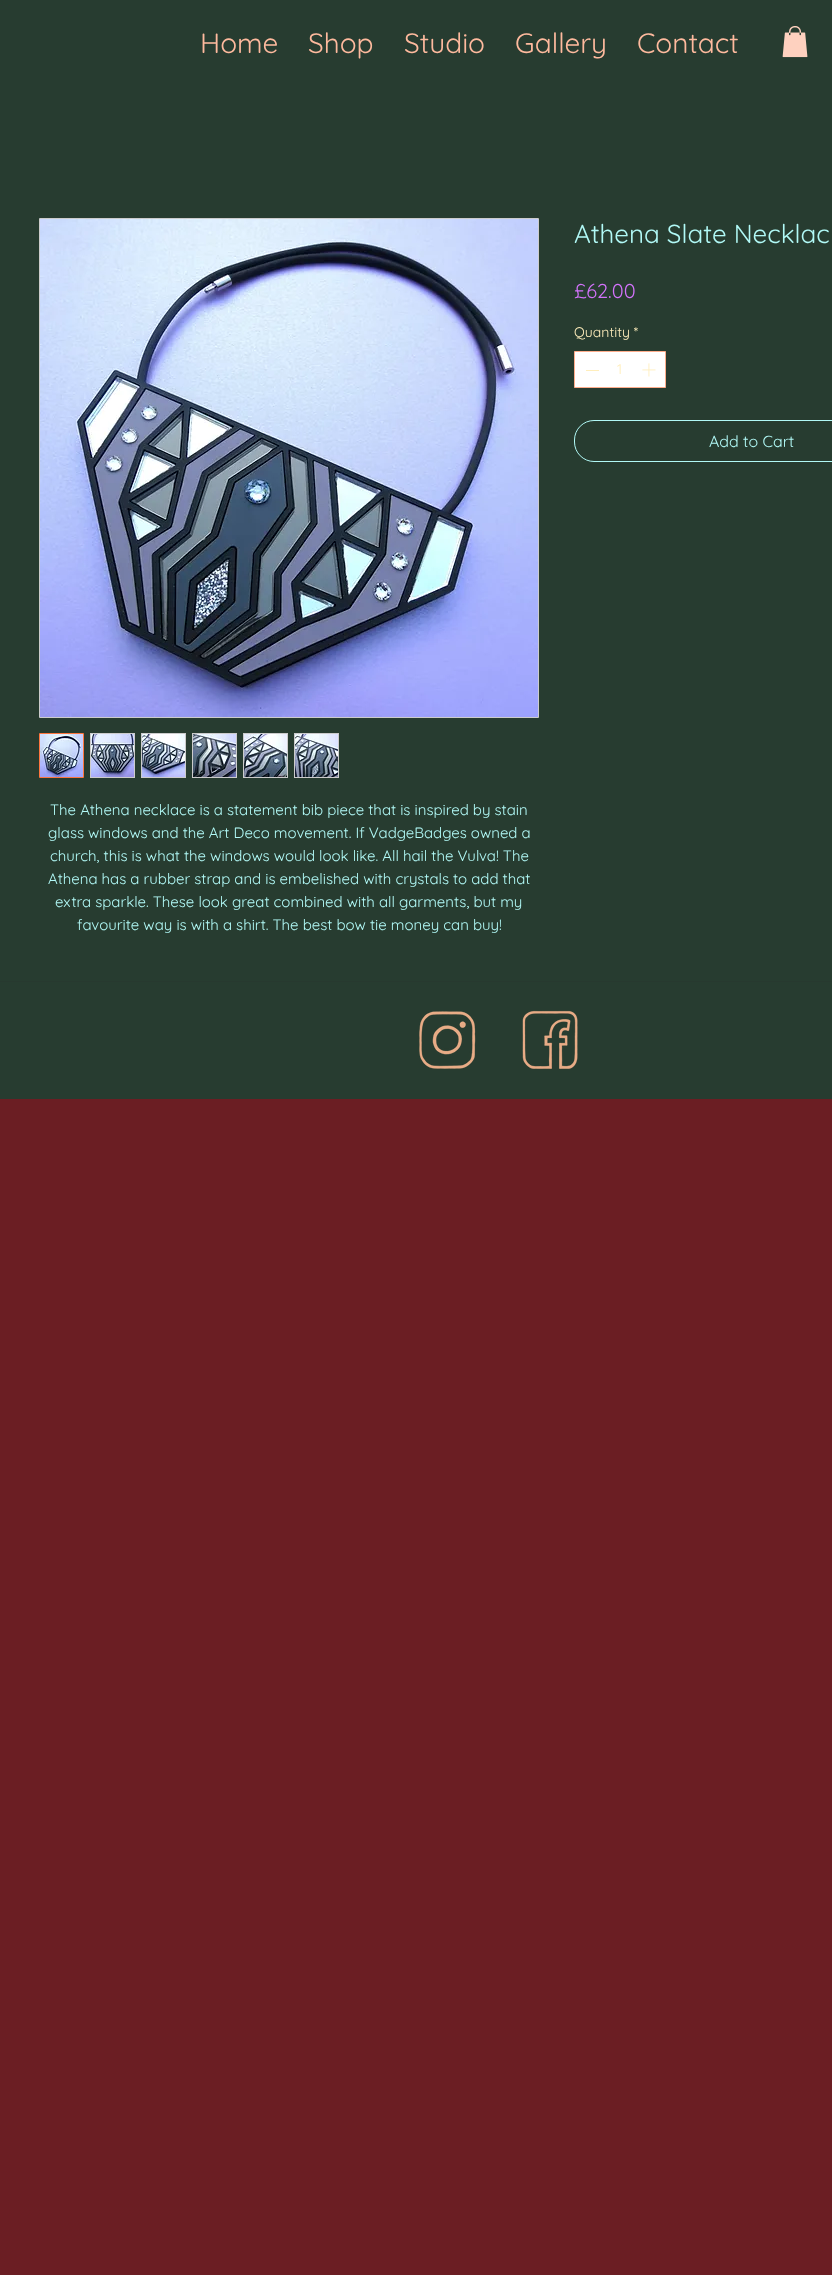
<svg xmlns="http://www.w3.org/2000/svg" width="832" height="2275">
<style>
.a{font:28px Quicksand;fill:#feba9e}
.b{font:26px Quicksand;fill:#b1f9f6}
.c{font:20px Quicksand;fill:#d373fb}
.d{font:14px Quicksand;fill:#ffeebc}
.e{font:16px Quicksand;fill:#b1f9f6}
.f{font:15px Quicksand;fill:#b1f9f6}
</style>
<rect width="100%" height="100%" fill="#6b1e23"/>
<path fill="#273c30" d="M0 0h832v981H0z"/>
<image href="1.png" x="782" y="26" width="26" height="32"/>
<path fill="#fff" stroke="#fead8c" d="M574.5 351.5h91v36H574.5z"/>
<path fill="#ffeebc" d="M586 370h13v1H586z"/>
<image href="2.png" x="642" y="363" width="14" height="14"/>
<rect fill="none" stroke="#b1f9f6" x="574.5" y="420.5" width="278" height="41" rx="19.5"/>
<path fill="none" stroke="#ccc" d="M39.5 218.5h499v499H39.5z"/>
<image href="3.png" x="40" y="219" width="498" height="498"/>
<path fill="none" stroke="#fd763f" d="M39.5 733.5h44v44H39.5z"/>
<image href="4.png" x="40" y="734" width="43" height="43"/>
<path fill="#ccc" d="M90 733h45v45H90z"/>
<image href="5.png" x="91" y="734" width="43" height="43"/>
<path fill="#ccc" d="M141 733h45v45H141z"/>
<image href="6.png" x="142" y="734" width="43" height="43"/>
<path fill="#ccc" d="M192 733h45v45H192z"/>
<image href="7.png" x="193" y="734" width="43" height="43"/>
<path fill="#ccc" d="M243 733h45v45H243z"/>
<image href="8.png" x="244" y="734" width="43" height="43"/>
<path fill="#ccc" d="M294 733h45v45H294z"/>
<image href="9.png" x="295" y="734" width="43" height="43"/>
<path fill="#273c30" d="M0 982h832v117H0z"/>
<path fill="#27392f" d="M0 981h832v1H0z"/>
<image href="10.png" x="419" y="1011" width="57" height="58"/>
<image href="11.png" x="522" y="1010" width="56" height="59"/>
<text class="a" x="200" y="53">Home</text>
<text class="a" x="308" y="53">Shop</text>
<text class="a" x="404" y="53">Studio</text>
<text class="a" x="515" y="53">Gallery</text>
<text class="a" x="637" y="53">Contact</text>
<text class="b" x="574" y="243">Athena Slate Necklac</text>
<text class="c" x="574" y="298">£62.00</text>
<text class="d" x="574" y="337">Quantity *</text>
<text class="d" x="617" y="374">1</text>
<text class="e" x="709" y="447">Add to Cart</text>
<text class="f" x="50" y="815">The Athena necklace is a statement bib piece that is inspired by stain</text>
<text class="f" x="48" y="838">glass windows and the Art Deco movement. If VadgeBadges owned a</text>
<text class="f" x="50" y="861">church, this is what the windows would look like. All hail the Vulva! The</text>
<text class="f" x="48" y="884">Athena has a rubber strap and is embelished with crystals to add that</text>
<text class="f" x="55" y="907">extra sparkle. These look great combined with all garments, but my</text>
<text class="f" x="77" y="930">favourite way is with a shirt. The best bow tie money can buy!</text>
</svg>
